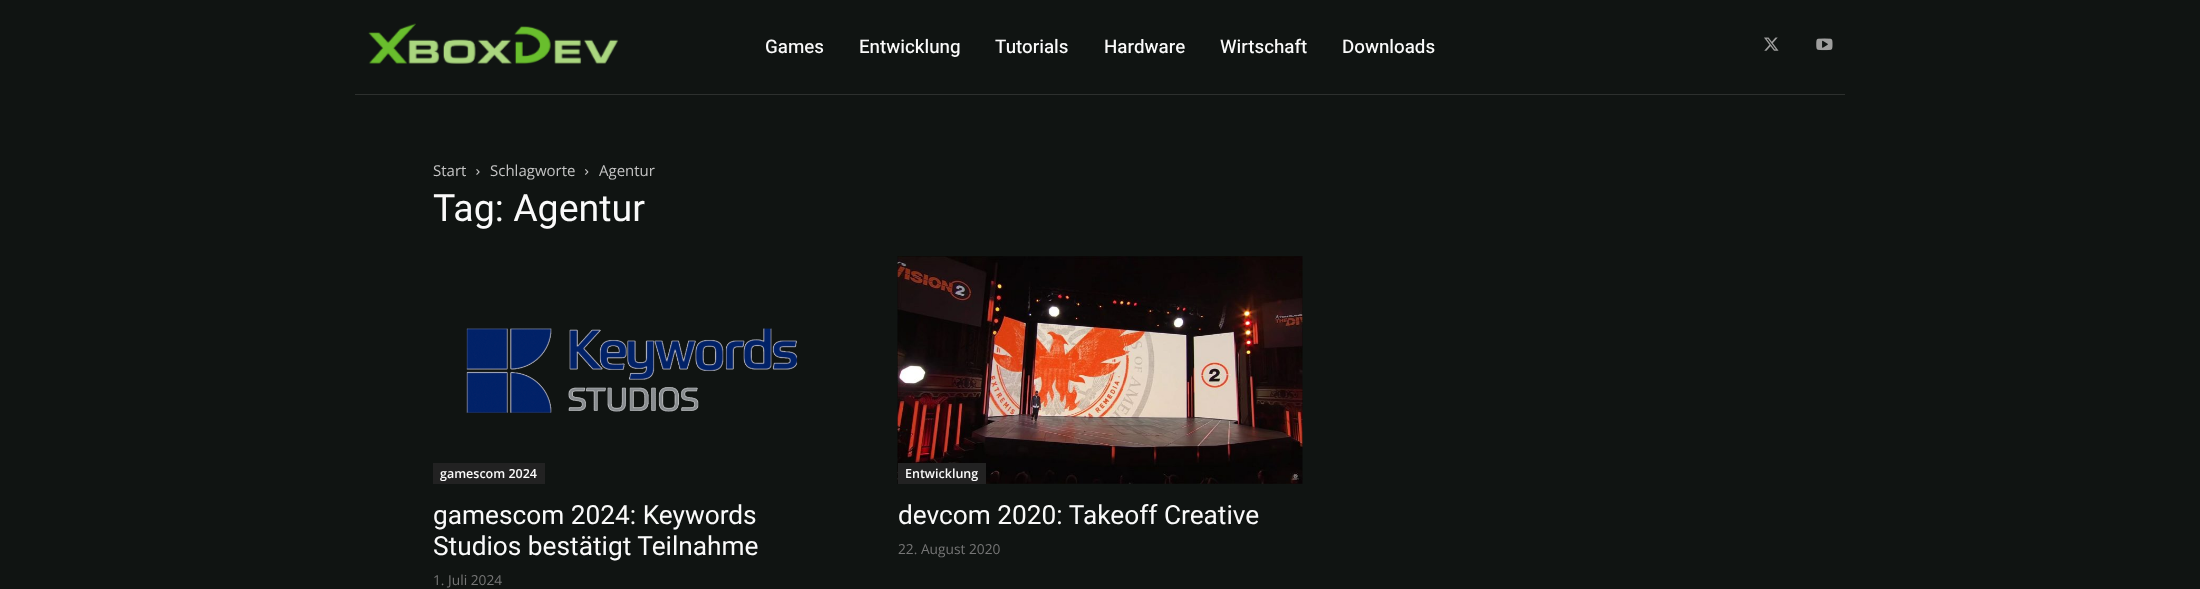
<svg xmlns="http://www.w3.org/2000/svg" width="2200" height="589">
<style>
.a{font:500 18.75px Heebo;fill:#fafafa}
.b{font:15px Open Sans;fill:#c3c3c3}
.c{font:37.5px Roboto;fill:#fafafa}
.d{font:600 12.5px Open Sans;fill:#fafafa}
.e{font:26.25px Roboto;fill:#fafafa}
.f{font:13.75px Open Sans;fill:#767676}
</style>
<rect width="100%" height="100%" fill="#101412"/>
<image href="1.png" x="368" y="23" width="251" height="41"/>
<image href="2.png" x="1764" y="37" width="15" height="14"/>
<image href="3.png" x="1816" y="38" width="17" height="13"/>
<path fill="#2d302e" d="M355 94h1490v1H355z"/>
<image href="4.png" x="476" y="169" width="4" height="6"/>
<image href="5.png" x="585" y="169" width="4" height="6"/>
<image href="6.png" x="466" y="328" width="332" height="85"/>
<path fill="#222" d="M433 463h112v21H433z"/>
<image href="7.png" x="897" y="256" width="406" height="228"/>
<path fill="#222" d="M898 463h88v21H898z"/>
<text class="a" x="765" y="53">Games</text>
<text class="a" x="859" y="53">Entwicklung</text>
<text class="a" x="995" y="53">Tutorials</text>
<text class="a" x="1104" y="53">Hardware</text>
<text class="a" x="1220" y="53">Wirtschaft</text>
<text class="a" x="1342" y="53">Downloads</text>
<text class="b" x="433" y="176">Start</text>
<text class="b" x="490" y="176">Schlagworte</text>
<text class="b" x="599" y="176">Agentur</text>
<text class="c" x="433" y="221">Tag: Agentur</text>
<text class="d" x="440" y="478">gamescom 2024</text>
<text class="e" x="433" y="524">gamescom 2024: Keywords</text>
<text class="e" x="433" y="555">Studios bestätigt Teilnahme</text>
<text class="f" x="433" y="585">1. Juli 2024</text>
<text class="d" x="905" y="478">Entwicklung</text>
<text class="e" x="898" y="524">devcom 2020: Takeoff Creative</text>
<text class="f" x="898" y="554">22. August 2020</text>
</svg>
